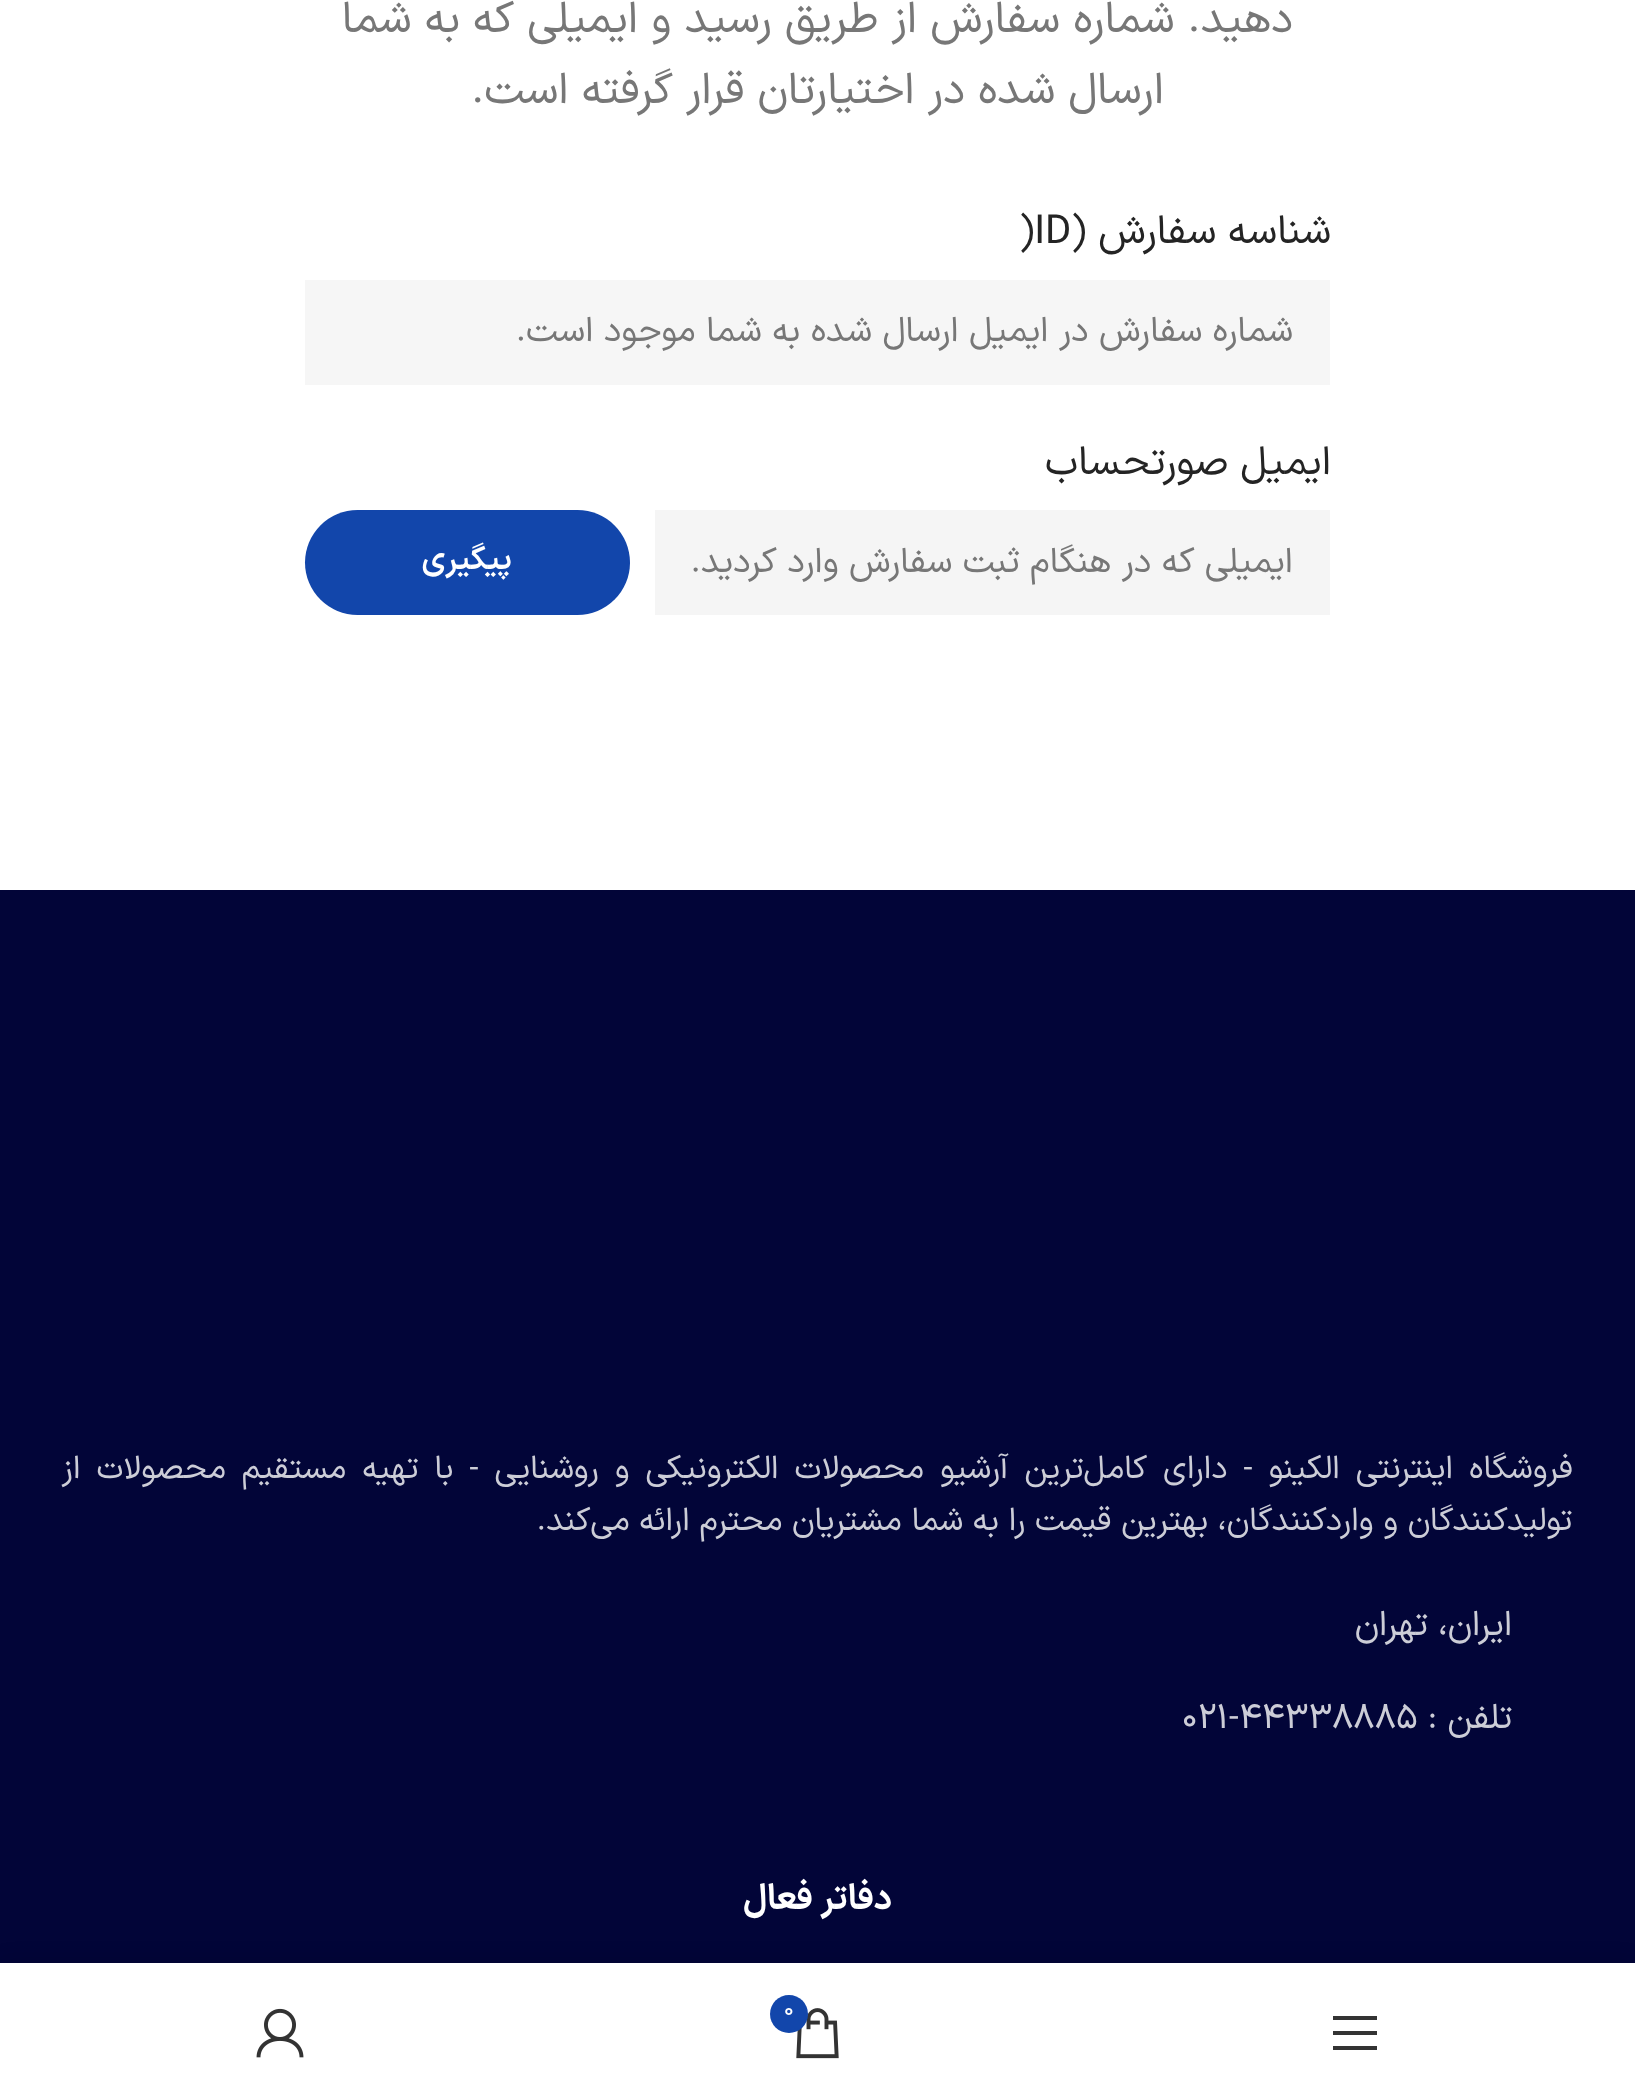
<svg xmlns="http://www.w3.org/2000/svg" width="1635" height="2099">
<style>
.a{font:44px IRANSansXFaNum;direction:rtl;fill:#777}
.b{font:40px IRANSansXFaNum;direction:rtl;fill:#242424}
.c{font:40px IRANSansXFaNum;fill:#242424}
.d{font:35px IRANSansXFaNum;direction:rtl;fill:#777}
.e{font:600 32.5px IRANSansXFaNum;direction:rtl;fill:#fff}
.f{font:32.5px IRANSansXFaNum;direction:rtl;fill:#cccdd7}
.g{font:35px IRANSansXFaNum;direction:rtl;fill:#cccdd7}
.h{font:35px IRANSansXFaNum;fill:#cccdd7}
.i{font:bold 35px IRANSansXFaNum;direction:rtl;fill:#fff}
.j{font:22px IRANSansXFaNum;fill:#fff}
</style>
<rect width="100%" height="100%" fill="#fff"/>
<path fill="#f6f6f6" d="M305 280h1025v105H305z"/>
<path fill="#f5f5f5" d="M655 510h675v105H655z"/>
<rect fill="#1246ab" x="305" y="510" width="325" height="105" rx="52.5"/>
<path fill="#020538" d="M0 890h1635v1073H0z"/>
<path fill="#0000001f" filter="blur(11px)" d="M0 1963h1635v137H0z"/>
<path fill="#fff" d="M0 1963h1635v136H0z"/>
<path fill="#333" d="M1333 2020h44v-4h-44zm0 15h44v-4h-44zm0 15h44v-4h-44z"/>
<image href="1.png" x="796" y="2008" width="43" height="51"/>
<circle fill="#1246ab" cx="789" cy="2014" r="19"/>
<image href="2.png" x="256" y="2008" width="48" height="50"/>
<text class="a" x="1293" y="32">دهید. شماره سفارش از طریق رسید و ایمیلی که به شما</text>
<text class="a" x="1164" y="103">ارسال شده در اختیارتان قرار گرفته است.</text>
<text class="b" x="1331" y="243">شناسه سفارش (</text>
<text class="c" x="1019" y="243">)ID</text>
<text class="d" x="1293" y="341">شماره سفارش در ایمیل ارسال شده به شما موجود است.</text>
<text class="b" x="1331" y="474">ایمیل صورتحساب</text>
<text class="d" x="1293" y="572">ایمیلی که در هنگام ثبت سفارش وارد کردید.</text>
<text class="e" x="512" y="569">پیگیری</text>
<text class="f" x="1573" y="1478" word-spacing="6.25">فروشگاه اینترنتی الکینو - دارای کامل‌ترین آرشیو محصولات الکترونیکی و روشنایی - با تهیه مستقیم محصولات از</text>
<text class="f" x="1572" y="1530">تولیدکنندگان و واردکنندگان، بهترین قیمت را به شما مشتریان محترم ارائه می‌کند.</text>
<text class="g" x="1512" y="1635">ایران، تهران</text>
<text class="g" x="1512" y="1728">تلفن :</text>
<text class="h" x="1182" y="1728">021-44338885</text>
<text class="i" x="892" y="1909">دفاتر فعال</text>
<text class="j" x="784" y="2016">0</text>
</svg>
